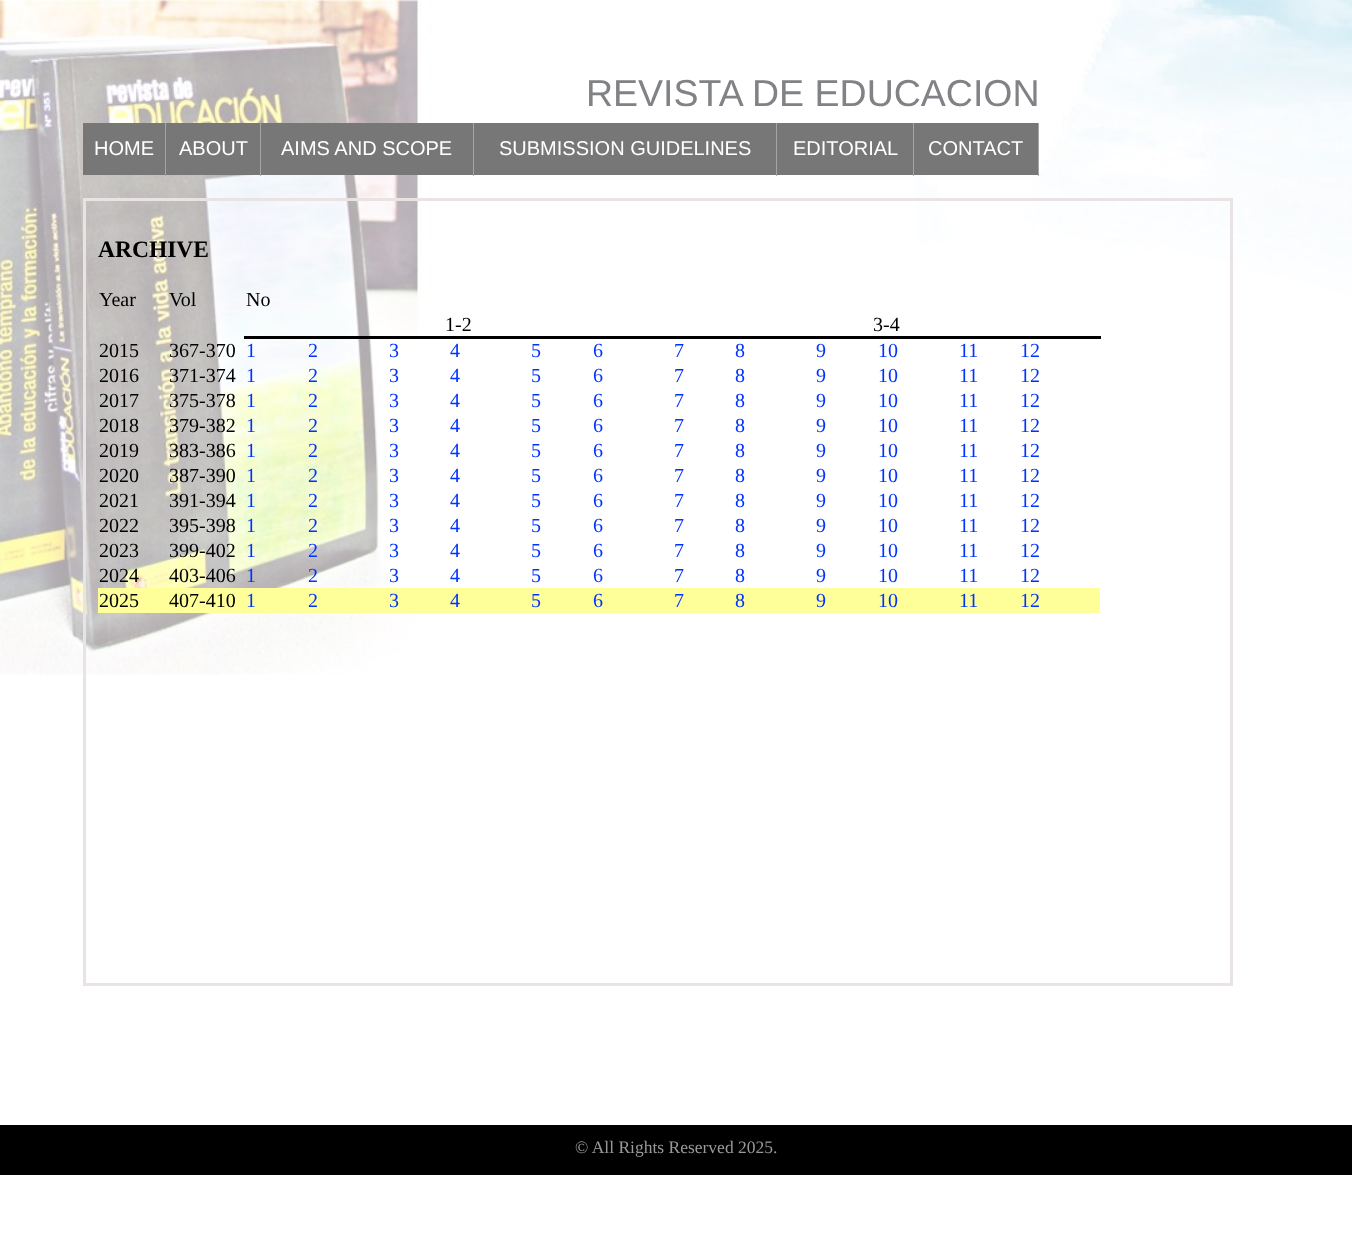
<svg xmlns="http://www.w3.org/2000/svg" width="1352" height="1251">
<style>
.a{font:37.5px Liberation Sans;fill:#818285}
.b{font:20px Liberation Sans;fill:#fff}
.c{font:bold 23.5px Liberation Serif;fill:#000}
.d{font:20px Liberation Serif;fill:#000}
.e{font:20px Liberation Serif;fill:#03f}
.f{font:17.5px Liberation Serif;fill:#999}
</style>
<rect width="100%" height="100%" fill="#fff"/>
<image href="1.png" x="0" y="0" width="1352" height="675"/>
<path fill="#777" d="M83 123h82v52H83z"/>
<path fill="#a5a5a5" d="M165 123h1v53H165z"/>
<path fill="#777" d="M166 123h94v52H166z"/>
<path fill="#a5a5a5" d="M260 123h1v53H260z"/>
<path fill="#777" d="M261 123h212v52H261z"/>
<path fill="#a5a5a5" d="M473 123h1v53H473z"/>
<path fill="#777" d="M474 123h439v52H474z"/>
<path fill="#a5a5a5" d="M776 123h1v53H776z"/>
<path fill="#a5a5a5" d="M913 123h1v53H913z"/>
<path fill="#777" d="M914 123h124v52H914z"/>
<path fill="#a5a5a5" d="M1038 123h1v53H1038z"/>
<path fill="none" stroke="#eae3e3" stroke-width="3" d="M84.5 199.5h1147v785H84.5z"/>
<path fill="#000" d="M244 336h857v3H244z"/>
<path fill="#ff9" d="M98 588h1002v25H98z"/>
<path fill="#000" d="M0 1125h1352v50H0z"/>
<text class="a" x="586" y="106">REVISTA DE EDUCACION</text>
<text class="b" x="94" y="155">HOME</text>
<text class="b" x="179" y="155">ABOUT</text>
<text class="b" x="281" y="155">AIMS AND SCOPE</text>
<text class="b" x="499" y="155">SUBMISSION GUIDELINES</text>
<text class="b" x="793" y="155">EDITORIAL</text>
<text class="b" x="928" y="155">CONTACT</text>
<text class="c" x="98" y="257">ARCHIVE</text>
<text class="d" x="99" y="306">Year</text>
<text class="d" x="169" y="306">Vol</text>
<text class="d" x="246" y="306">No</text>
<text class="d" x="445" y="331">1-2</text>
<text class="d" x="873" y="331">3-4</text>
<text class="d" x="99" y="357">2015</text>
<text class="d" x="169" y="357">367-370</text>
<text class="e" x="246" y="357">1</text>
<text class="e" x="308" y="357">2</text>
<text class="e" x="389" y="357">3</text>
<text class="e" x="450" y="357">4</text>
<text class="e" x="531" y="357">5</text>
<text class="e" x="593" y="357">6</text>
<text class="e" x="674" y="357">7</text>
<text class="e" x="735" y="357">8</text>
<text class="e" x="816" y="357">9</text>
<text class="e" x="878" y="357">10</text>
<text class="e" x="959" y="357">11</text>
<text class="e" x="1020" y="357">12</text>
<text class="d" x="99" y="382">2016</text>
<text class="d" x="169" y="382">371-374</text>
<text class="e" x="246" y="382">1</text>
<text class="e" x="308" y="382">2</text>
<text class="e" x="389" y="382">3</text>
<text class="e" x="450" y="382">4</text>
<text class="e" x="531" y="382">5</text>
<text class="e" x="593" y="382">6</text>
<text class="e" x="674" y="382">7</text>
<text class="e" x="735" y="382">8</text>
<text class="e" x="816" y="382">9</text>
<text class="e" x="878" y="382">10</text>
<text class="e" x="959" y="382">11</text>
<text class="e" x="1020" y="382">12</text>
<text class="d" x="99" y="407">2017</text>
<text class="d" x="169" y="407">375-378</text>
<text class="e" x="246" y="407">1</text>
<text class="e" x="308" y="407">2</text>
<text class="e" x="389" y="407">3</text>
<text class="e" x="450" y="407">4</text>
<text class="e" x="531" y="407">5</text>
<text class="e" x="593" y="407">6</text>
<text class="e" x="674" y="407">7</text>
<text class="e" x="735" y="407">8</text>
<text class="e" x="816" y="407">9</text>
<text class="e" x="878" y="407">10</text>
<text class="e" x="959" y="407">11</text>
<text class="e" x="1020" y="407">12</text>
<text class="d" x="99" y="432">2018</text>
<text class="d" x="169" y="432">379-382</text>
<text class="e" x="246" y="432">1</text>
<text class="e" x="308" y="432">2</text>
<text class="e" x="389" y="432">3</text>
<text class="e" x="450" y="432">4</text>
<text class="e" x="531" y="432">5</text>
<text class="e" x="593" y="432">6</text>
<text class="e" x="674" y="432">7</text>
<text class="e" x="735" y="432">8</text>
<text class="e" x="816" y="432">9</text>
<text class="e" x="878" y="432">10</text>
<text class="e" x="959" y="432">11</text>
<text class="e" x="1020" y="432">12</text>
<text class="d" x="99" y="457">2019</text>
<text class="d" x="169" y="457">383-386</text>
<text class="e" x="246" y="457">1</text>
<text class="e" x="308" y="457">2</text>
<text class="e" x="389" y="457">3</text>
<text class="e" x="450" y="457">4</text>
<text class="e" x="531" y="457">5</text>
<text class="e" x="593" y="457">6</text>
<text class="e" x="674" y="457">7</text>
<text class="e" x="735" y="457">8</text>
<text class="e" x="816" y="457">9</text>
<text class="e" x="878" y="457">10</text>
<text class="e" x="959" y="457">11</text>
<text class="e" x="1020" y="457">12</text>
<text class="d" x="99" y="482">2020</text>
<text class="d" x="169" y="482">387-390</text>
<text class="e" x="246" y="482">1</text>
<text class="e" x="308" y="482">2</text>
<text class="e" x="389" y="482">3</text>
<text class="e" x="450" y="482">4</text>
<text class="e" x="531" y="482">5</text>
<text class="e" x="593" y="482">6</text>
<text class="e" x="674" y="482">7</text>
<text class="e" x="735" y="482">8</text>
<text class="e" x="816" y="482">9</text>
<text class="e" x="878" y="482">10</text>
<text class="e" x="959" y="482">11</text>
<text class="e" x="1020" y="482">12</text>
<text class="d" x="99" y="507">2021</text>
<text class="d" x="169" y="507">391-394</text>
<text class="e" x="246" y="507">1</text>
<text class="e" x="308" y="507">2</text>
<text class="e" x="389" y="507">3</text>
<text class="e" x="450" y="507">4</text>
<text class="e" x="531" y="507">5</text>
<text class="e" x="593" y="507">6</text>
<text class="e" x="674" y="507">7</text>
<text class="e" x="735" y="507">8</text>
<text class="e" x="816" y="507">9</text>
<text class="e" x="878" y="507">10</text>
<text class="e" x="959" y="507">11</text>
<text class="e" x="1020" y="507">12</text>
<text class="d" x="99" y="532">2022</text>
<text class="d" x="169" y="532">395-398</text>
<text class="e" x="246" y="532">1</text>
<text class="e" x="308" y="532">2</text>
<text class="e" x="389" y="532">3</text>
<text class="e" x="450" y="532">4</text>
<text class="e" x="531" y="532">5</text>
<text class="e" x="593" y="532">6</text>
<text class="e" x="674" y="532">7</text>
<text class="e" x="735" y="532">8</text>
<text class="e" x="816" y="532">9</text>
<text class="e" x="878" y="532">10</text>
<text class="e" x="959" y="532">11</text>
<text class="e" x="1020" y="532">12</text>
<text class="d" x="99" y="557">2023</text>
<text class="d" x="169" y="557">399-402</text>
<text class="e" x="246" y="557">1</text>
<text class="e" x="308" y="557">2</text>
<text class="e" x="389" y="557">3</text>
<text class="e" x="450" y="557">4</text>
<text class="e" x="531" y="557">5</text>
<text class="e" x="593" y="557">6</text>
<text class="e" x="674" y="557">7</text>
<text class="e" x="735" y="557">8</text>
<text class="e" x="816" y="557">9</text>
<text class="e" x="878" y="557">10</text>
<text class="e" x="959" y="557">11</text>
<text class="e" x="1020" y="557">12</text>
<text class="d" x="99" y="582">2024</text>
<text class="d" x="169" y="582">403-406</text>
<text class="e" x="246" y="582">1</text>
<text class="e" x="308" y="582">2</text>
<text class="e" x="389" y="582">3</text>
<text class="e" x="450" y="582">4</text>
<text class="e" x="531" y="582">5</text>
<text class="e" x="593" y="582">6</text>
<text class="e" x="674" y="582">7</text>
<text class="e" x="735" y="582">8</text>
<text class="e" x="816" y="582">9</text>
<text class="e" x="878" y="582">10</text>
<text class="e" x="959" y="582">11</text>
<text class="e" x="1020" y="582">12</text>
<text class="d" x="99" y="607">2025</text>
<text class="d" x="169" y="607">407-410</text>
<text class="e" x="246" y="607">1</text>
<text class="e" x="308" y="607">2</text>
<text class="e" x="389" y="607">3</text>
<text class="e" x="450" y="607">4</text>
<text class="e" x="531" y="607">5</text>
<text class="e" x="593" y="607">6</text>
<text class="e" x="674" y="607">7</text>
<text class="e" x="735" y="607">8</text>
<text class="e" x="816" y="607">9</text>
<text class="e" x="878" y="607">10</text>
<text class="e" x="959" y="607">11</text>
<text class="e" x="1020" y="607">12</text>
<text class="f" x="575" y="1153">© All Rights Reserved 2025.</text>
</svg>
